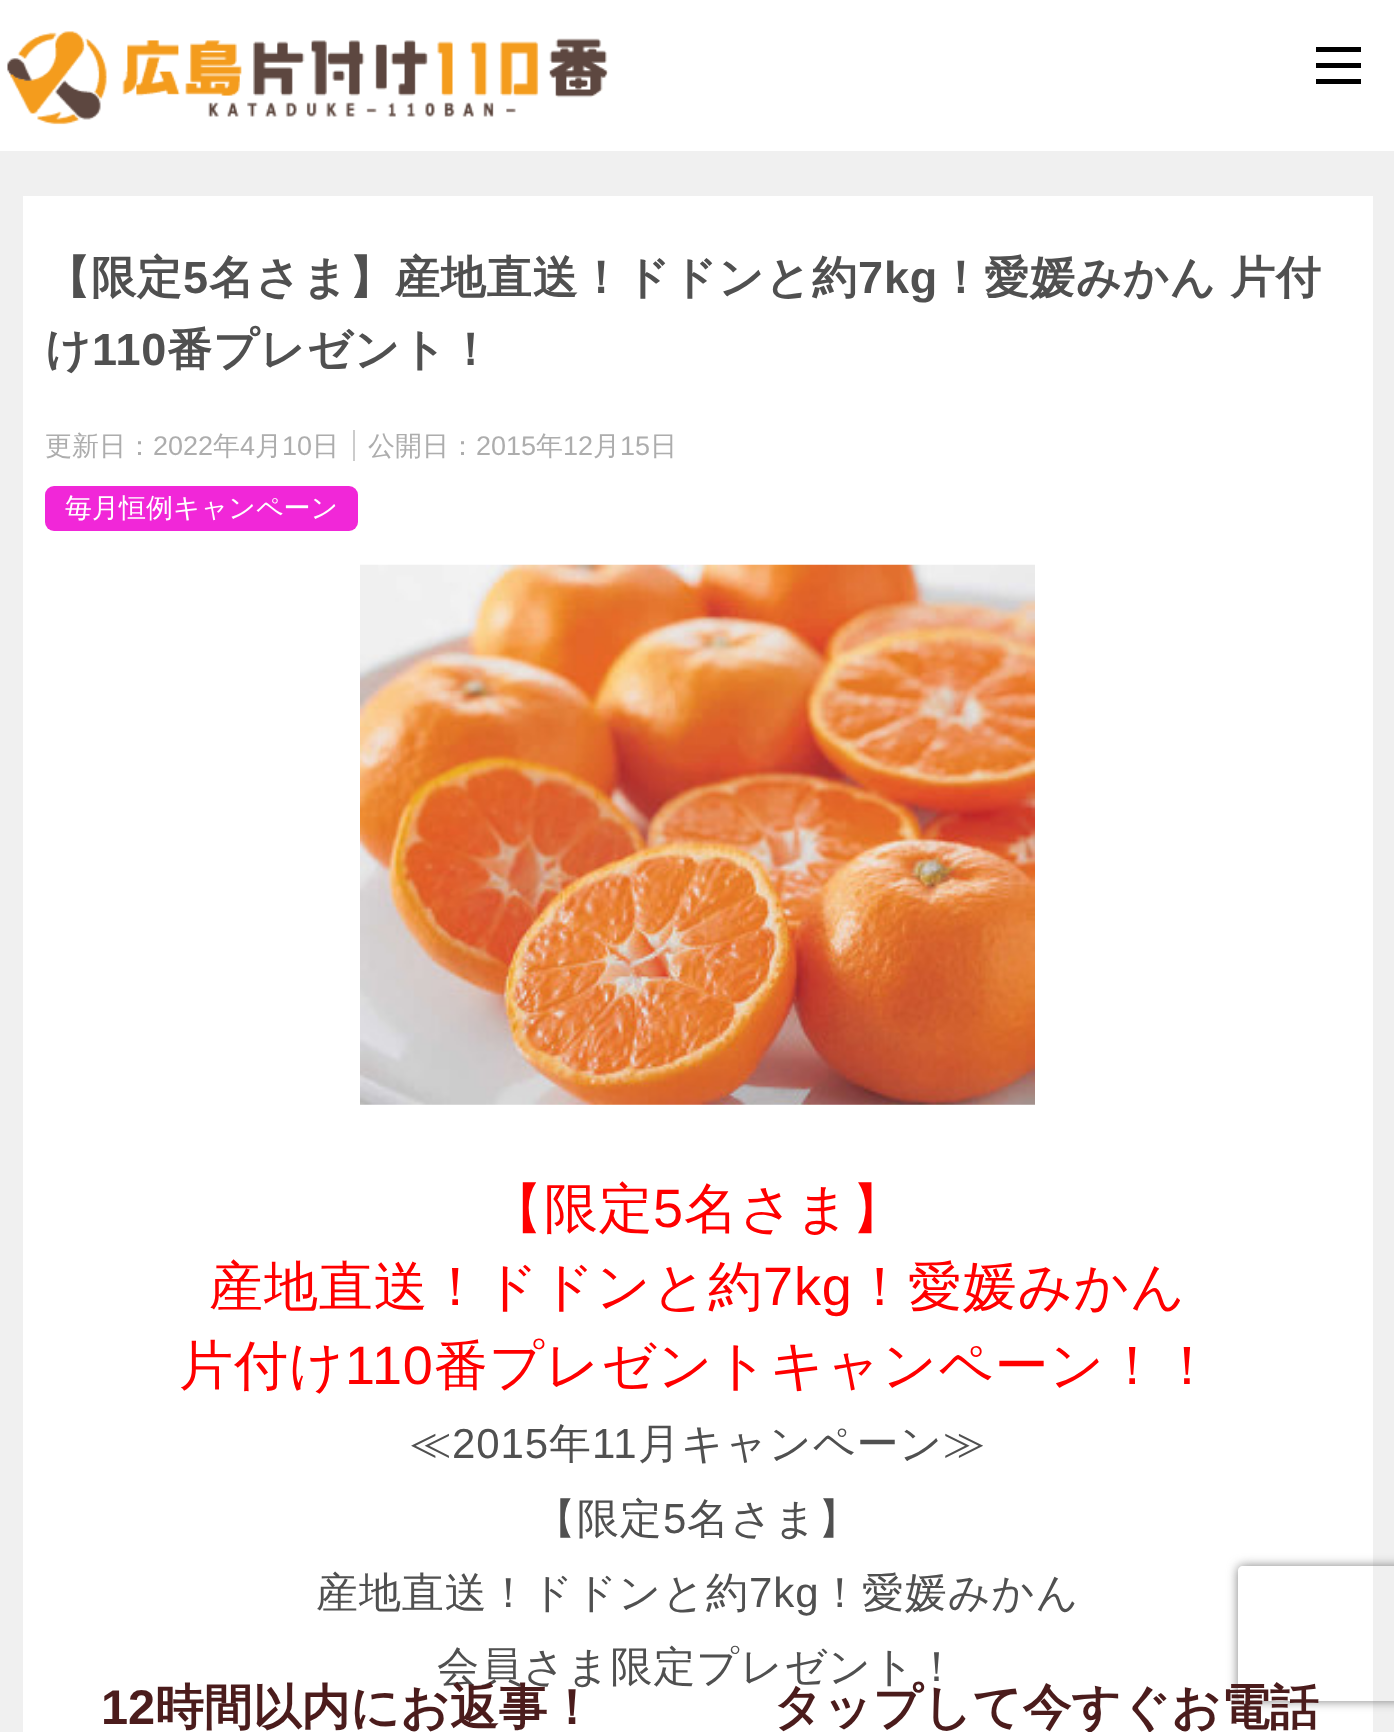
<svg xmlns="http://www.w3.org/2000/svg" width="1394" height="1732">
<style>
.a{font:bold 45px WenQuanYi Zen Hei;letter-spacing:0.9px;fill:#505050}
.b{font:bold 45px Liberation Sans;letter-spacing:0.9px;fill:#505050}
.c{font:500 27px WenQuanYi Zen Hei;fill:#adadad}
.d{font:27px Liberation Sans;fill:#adadad}
.e{font:500 27px WenQuanYi Zen Hei;fill:#fff}
.f{font:500 54px WenQuanYi Zen Hei;letter-spacing:0.9px;fill:#f00}
.g{font:54px Liberation Sans;letter-spacing:0.9px;fill:#f00}
.h{font:500 42px WenQuanYi Zen Hei;letter-spacing:0.9px;fill:#505050}
.i{font:42px Liberation Sans;letter-spacing:0.9px;fill:#505050}
.j{font:bold 48.75px Liberation Sans;fill:#4b1c1c}
.k{font:bold 48.75px WenQuanYi Zen Hei;fill:#4b1c1c}
</style>
<defs>
<clipPath id="clip1"><path d="M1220 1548h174v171h-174zm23 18h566c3 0 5 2 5 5v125c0 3-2 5-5 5h-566c-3 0-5-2-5-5v-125c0-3 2-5 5-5z" clip-rule="evenodd"/></clipPath>
</defs>
<rect width="100%" height="100%" fill="#f0f0f0"/>
<path fill="#fff" d="M0 0h1394v151H0z"/>
<image href="1.png" x="7" y="31" width="602" height="94"/>
<path fill="#000" d="M1316 63h45v5H1316z"/>
<path fill="#000" d="M1316 47h45v5H1316z"/>
<path fill="#000" d="M1316 79h45v5H1316z"/>
<path fill="#fff" d="M23 196h1350v1536H23z"/>
<path fill="#ccc" d="M353 430h2v31H353z"/>
<rect fill="#f127d8" x="45" y="486" width="313" height="45" rx="9"/>
<image href="2.png" x="360" y="564" width="675" height="541"/>
<g clip-path="url(#clip1)">
<rect fill="#808080" filter="blur(5.5px)" x="1238" y="1566" width="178" height="135" rx="5"/>
</g>
<text class="a" x="45" y="293">【限定</text>
<text class="b" x="183" y="293">5</text>
<text class="a" x="209" y="293">名さま】産地直送！ドドンと約</text>
<text class="b" x="858" y="293">7kg</text>
<text class="a" x="938" y="293" word-spacing="-1">！愛媛みかん 片付</text>
<text class="a" x="45" y="365">け</text>
<text class="b" x="92" y="365">110</text>
<text class="a" x="167" y="365">番プレゼント！</text>
<text class="c" x="45" y="455">更新日：</text>
<text class="d" x="153" y="455">2022</text>
<text class="c" x="213" y="455">年</text>
<text class="d" x="240" y="455">4</text>
<text class="c" x="255" y="455">月</text>
<text class="d" x="282" y="455">10</text>
<text class="c" x="312" y="455">日</text>
<text class="c" x="368" y="455">公開日：</text>
<text class="d" x="476" y="455">2015</text>
<text class="c" x="536" y="455">年</text>
<text class="d" x="563" y="455">12</text>
<text class="c" x="593" y="455">月</text>
<text class="d" x="620" y="455">15</text>
<text class="c" x="650" y="455">日</text>
<text class="e" x="65" y="517">毎月恒例キャンペーン</text>
<text class="f" x="489" y="1227">【限定</text>
<text class="g" x="653" y="1227">5</text>
<text class="f" x="684" y="1227">名さま】</text>
<text class="f" x="209" y="1305">産地直送！ドドンと約</text>
<text class="g" x="763" y="1305">7kg</text>
<text class="f" x="853" y="1305">！愛媛みかん</text>
<text class="f" x="179" y="1384">片付け</text>
<text class="g" x="345" y="1384">110</text>
<text class="f" x="434" y="1384">番プレゼントキャンペーン！！</text>
<text class="h" x="409" y="1458">≪</text>
<text class="i" x="452" y="1458">2015</text>
<text class="h" x="549" y="1458">年</text>
<text class="i" x="592" y="1458">11</text>
<text class="h" x="638" y="1458">月キャンペーン≫</text>
<text class="h" x="534" y="1533">【限定</text>
<text class="i" x="663" y="1533">5</text>
<text class="h" x="687" y="1533">名さま】</text>
<text class="h" x="316" y="1607">産地直送！ドドンと約</text>
<text class="i" x="749" y="1607">7kg</text>
<text class="h" x="819" y="1607">！愛媛みかん</text>
<text class="h" x="437" y="1681">会員さま限定プレゼント！</text>
<text class="j" x="101" y="1724">12</text>
<text class="k" x="155" y="1724">時間以内にお返事！</text>
<text class="k" x="773" y="1724">タップして今すぐお電話</text>
</svg>
